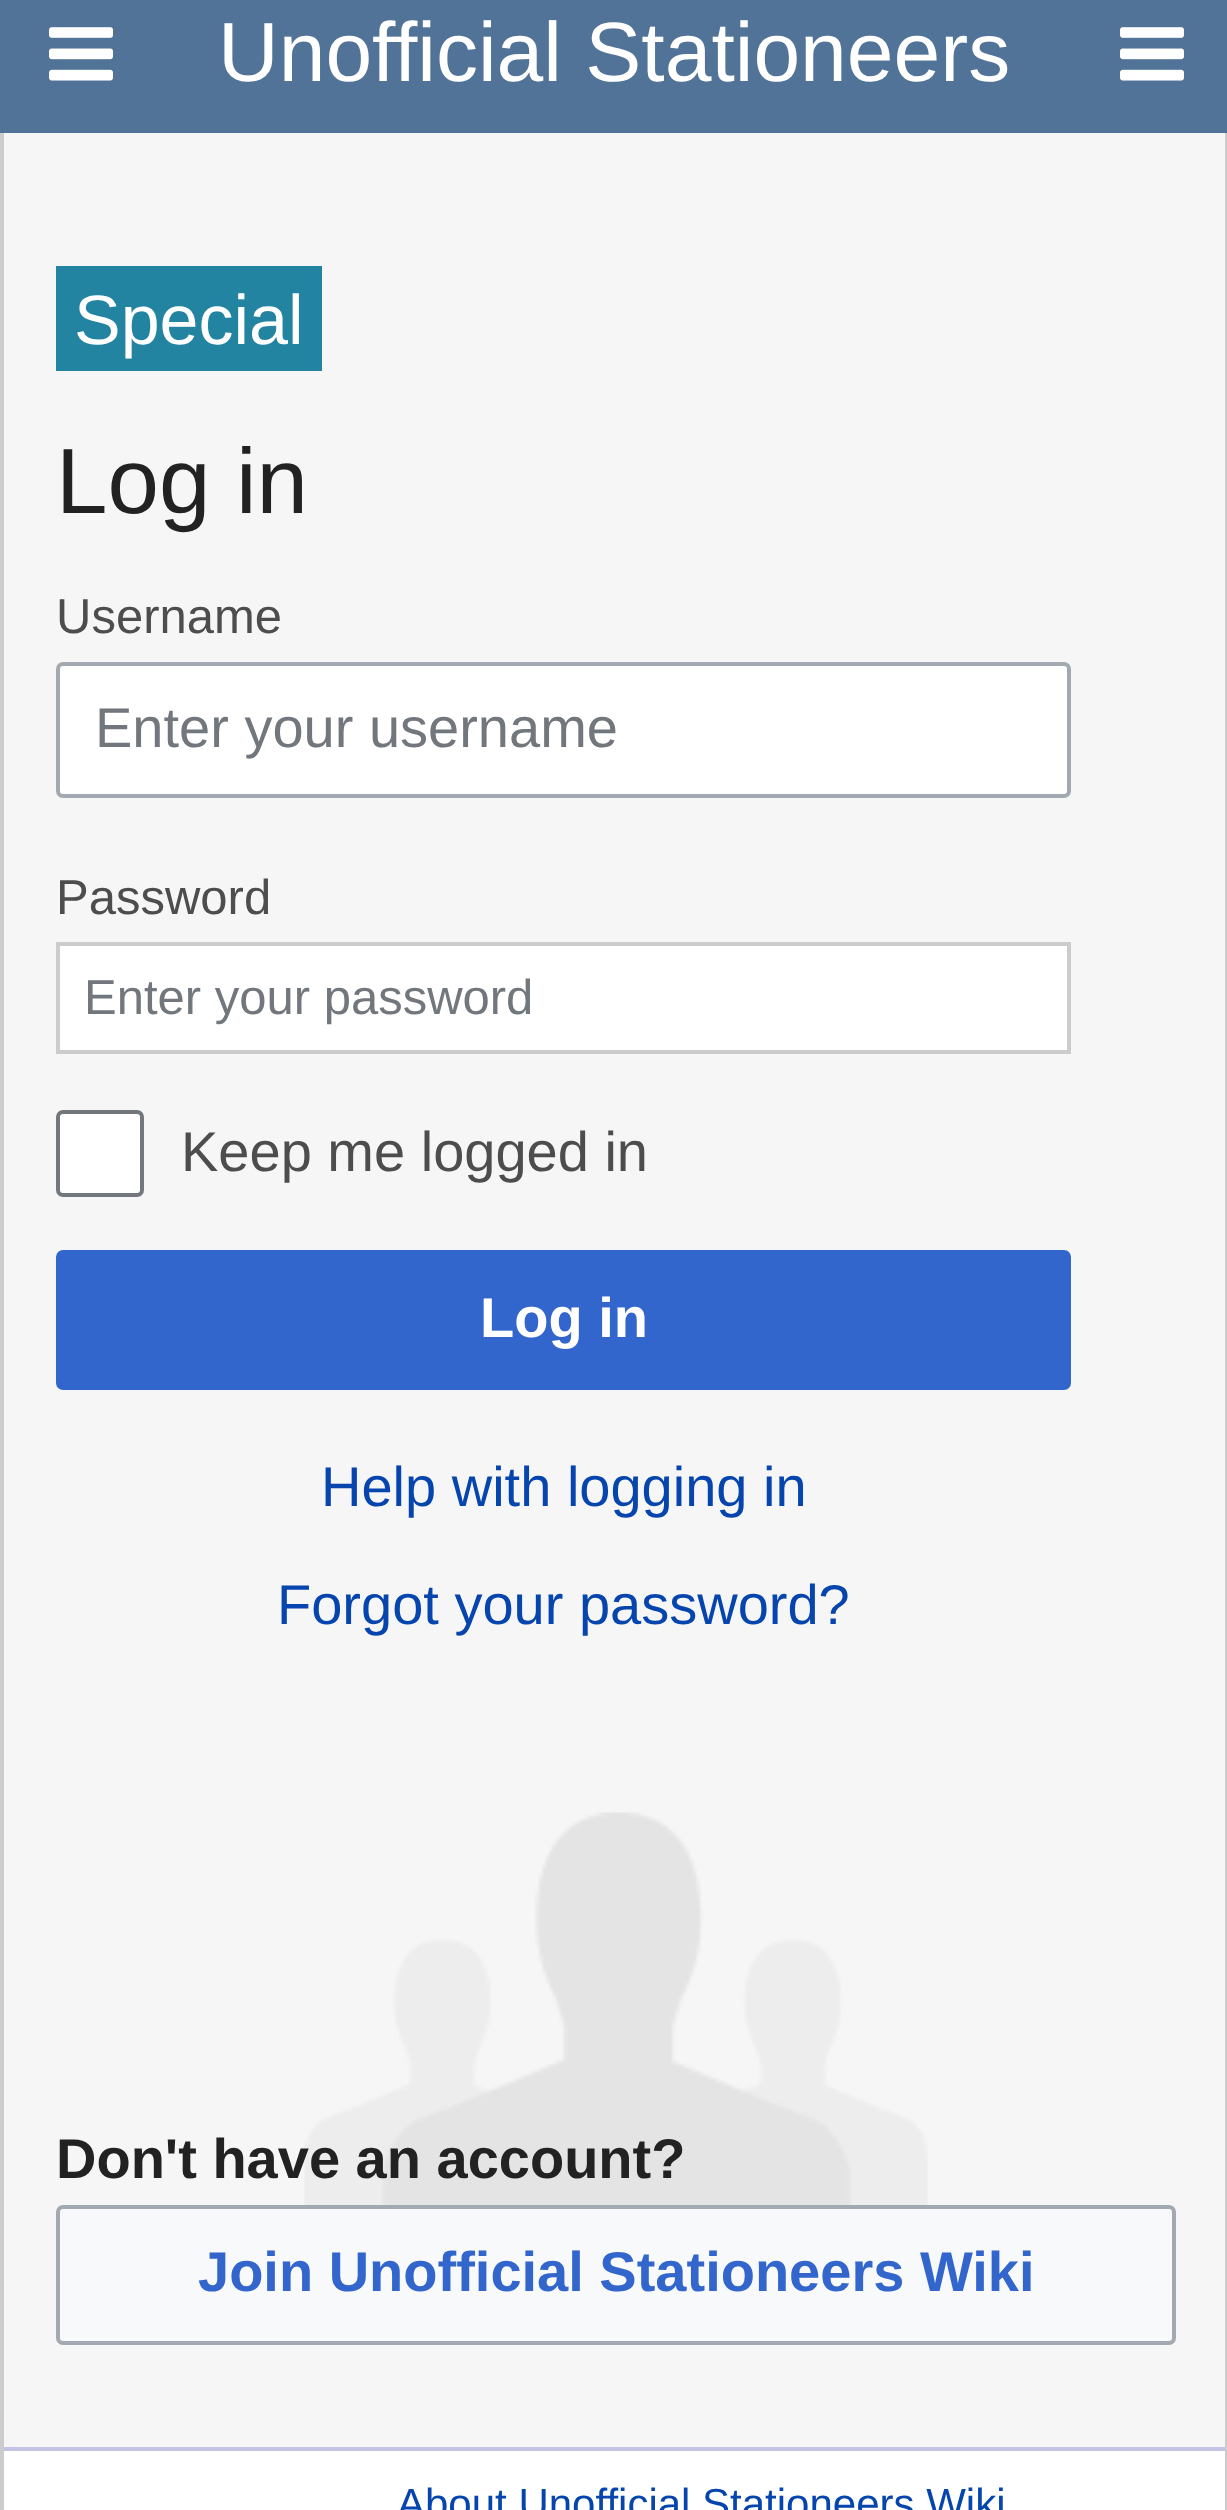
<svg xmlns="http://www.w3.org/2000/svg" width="1227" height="2510">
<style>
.a{font:84px Liberation Sans;fill:#fff}
.b{font:70px Liberation Sans;fill:#fff}
.c{font:92.5px Liberation Sans;fill:#222}
.d{font:49px Liberation Sans;fill:#4d4d4d}
.e{font:56px Liberation Sans;fill:#72777d}
.f{font:49px Liberation Sans;fill:#72777d}
.g{font:56px Liberation Sans;fill:#4d4d4d}
.h{font:bold 56px Liberation Sans;fill:#fff}
.i{font:56px Liberation Sans;fill:#0645ad}
.j{font:bold 56px Liberation Sans;fill:#222}
.k{font:bold 56px Liberation Sans;fill:#36c}
.l{font:42px Liberation Sans;fill:#0645ad}
</style>
<rect width="100%" height="100%" fill="#517398"/>
<image href="1.png" x="49" y="27" width="64" height="54"/>
<image href="1.png" x="1120" y="27" width="64" height="54"/>
<path fill="#f6f6f6" d="M4 133h1221v2314H4z"/>
<path fill="#ccc" d="M1225 133h2v2377H1225z"/>
<path fill="#ccc" d="M0 133h4v2377H0z"/>
<path fill="#2284a1" d="M56 266h266v105H56z"/>
<rect fill="#fff" stroke="#a2a9b1" stroke-width="4" x="58" y="664" width="1011" height="132" rx="5"/>
<path fill="#fff" stroke="#ccc" stroke-width="4" d="M58 944h1011v108H58z"/>
<rect fill="#fff" stroke="#72777d" stroke-width="4" x="58" y="1112" width="84" height="83" rx="5"/>
<rect fill="#36c" stroke="#36c" stroke-width="4" x="58" y="1252" width="1011" height="136" rx="5"/>
<image href="2.png" x="304" y="1812" width="624" height="393"/>
<rect fill="#f8f9fa" stroke="#a2a9b1" stroke-width="4" x="58" y="2207" width="1116" height="136" rx="5"/>
<path fill="#fff" d="M4 2451h1221v59H4z"/>
<path fill="#c3c3e5" d="M4 2447h1221v4H4z"/>
<text class="a" x="218" y="81">Unofficial Stationeers</text>
<text class="b" x="74" y="344">Special</text>
<text class="c" x="56" y="513">Log in</text>
<text class="d" x="56" y="633">Username</text>
<text class="e" x="95" y="747">Enter your username</text>
<text class="d" x="56" y="914">Password</text>
<text class="f" x="84" y="1014">Enter your password</text>
<text class="g" x="181" y="1171">Keep me logged in</text>
<text class="h" x="480" y="1337">Log in</text>
<text class="i" x="321" y="1506">Help with logging in</text>
<text class="i" x="277" y="1624">Forgot your password?</text>
<text class="j" x="56" y="2178">Don't have an account?</text>
<text class="k" x="198" y="2291">Join Unofficial Stationeers Wiki</text>
<text class="l" x="397" y="2518">About Unofficial Stationeers Wiki</text>
</svg>
